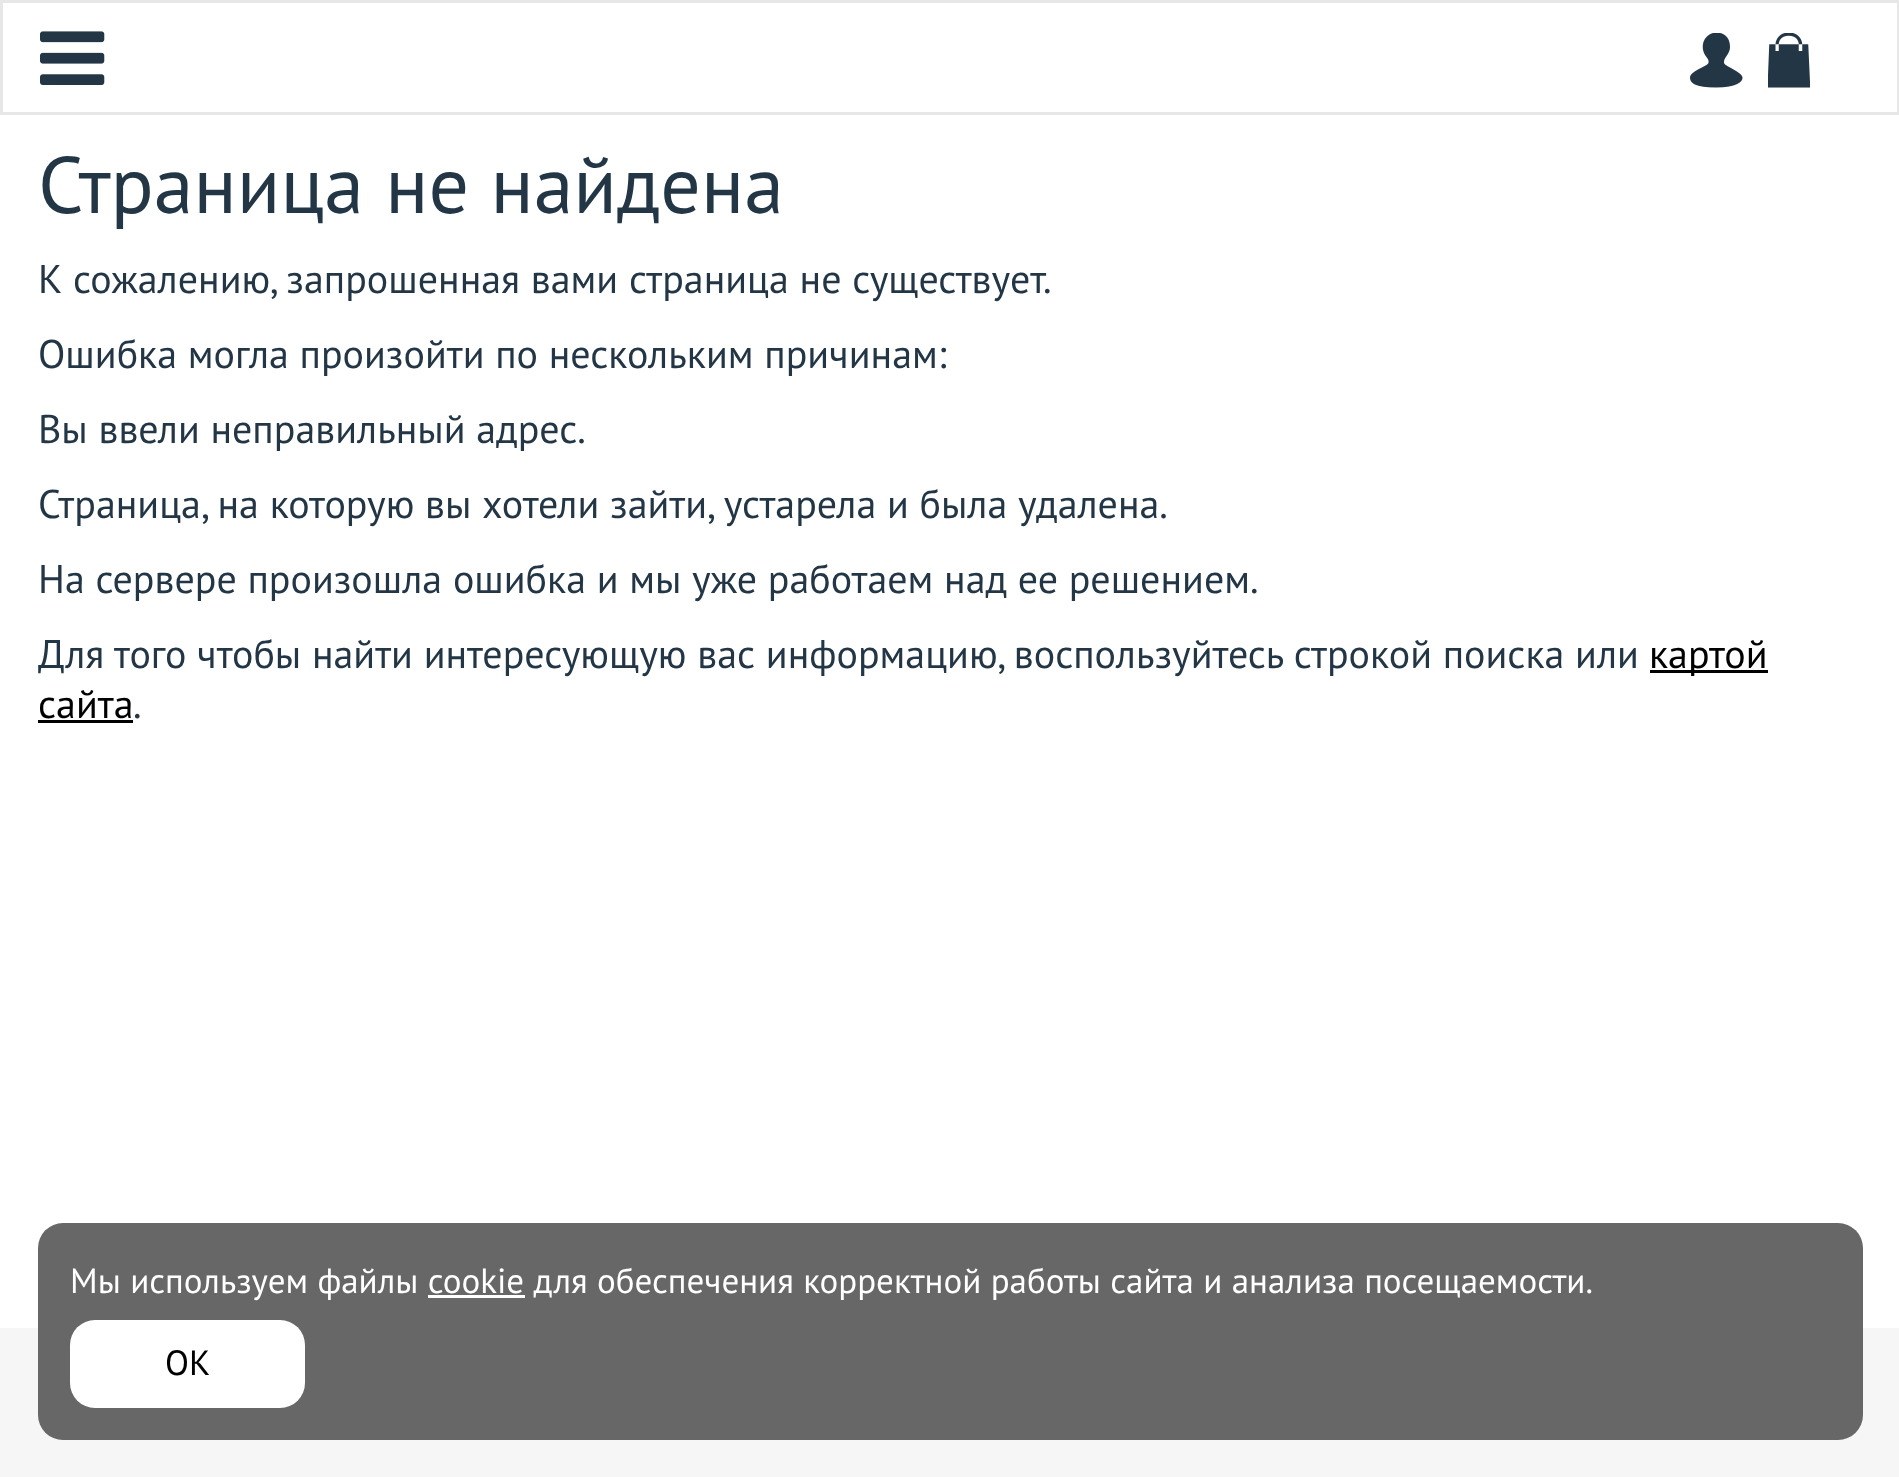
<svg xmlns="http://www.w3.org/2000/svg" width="1899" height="1477">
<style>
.a{font:80px PT Sans;fill:#233646}
.b{font:40px PT Sans;fill:#233646}
.c{font:40px PT Sans;fill:#000}
.d{font:35px PT Sans;fill:#fff}
.e{font:35px PT Sans;fill:#000}
</style>
<rect width="100%" height="100%" fill="#fff"/>
<path fill="none" stroke="#e7e7e7" stroke-width="3" d="M1.5 1.5h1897v112H1.5z"/>
<image href="1.png" x="40" y="31" width="65" height="54"/>
<image href="2.png" x="1690" y="33" width="53" height="55"/>
<image href="3.png" x="1768" y="33" width="42" height="55"/>
<path fill="#000" d="M1650 670h118v3H1650z"/>
<path fill="#000" d="M38 720h95v3H38z"/>
<path fill="#f6f6f6" d="M0 1328h1899v149H0z"/>
<rect fill="#676767" x="38" y="1223" width="1825" height="217" rx="25"/>
<path fill="#fff" d="M428 1295h97v3H428z"/>
<rect fill="#fff" x="70" y="1320" width="235" height="88" rx="25"/>
<text class="a" x="38" y="213">Страница не найдена</text>
<text class="b" x="38" y="293">К сожалению, запрошенная вами страница не существует.</text>
<text class="b" x="38" y="368">Ошибка могла произойти по нескольким причинам:</text>
<text class="b" x="38" y="443">Вы ввели неправильный адрес.</text>
<text class="b" x="38" y="518">Страница, на которую вы хотели зайти, устарела и была удалена.</text>
<text class="b" x="38" y="593">На сервере произошла ошибка и мы уже работаем над ее решением.</text>
<text class="b" x="38" y="668">Для того чтобы найти интересующую вас информацию, воспользуйтесь строкой поиска или</text>
<text class="c" x="1649" y="668">картой</text>
<text class="c" x="38" y="718">сайта</text>
<text class="b" x="133" y="718">.</text>
<text class="d" x="70" y="1293">Мы используем файлы cookie для обеспечения корректной работы сайта и анализа посещаемости.</text>
<text class="e" x="165" y="1375">ОК</text>
</svg>
